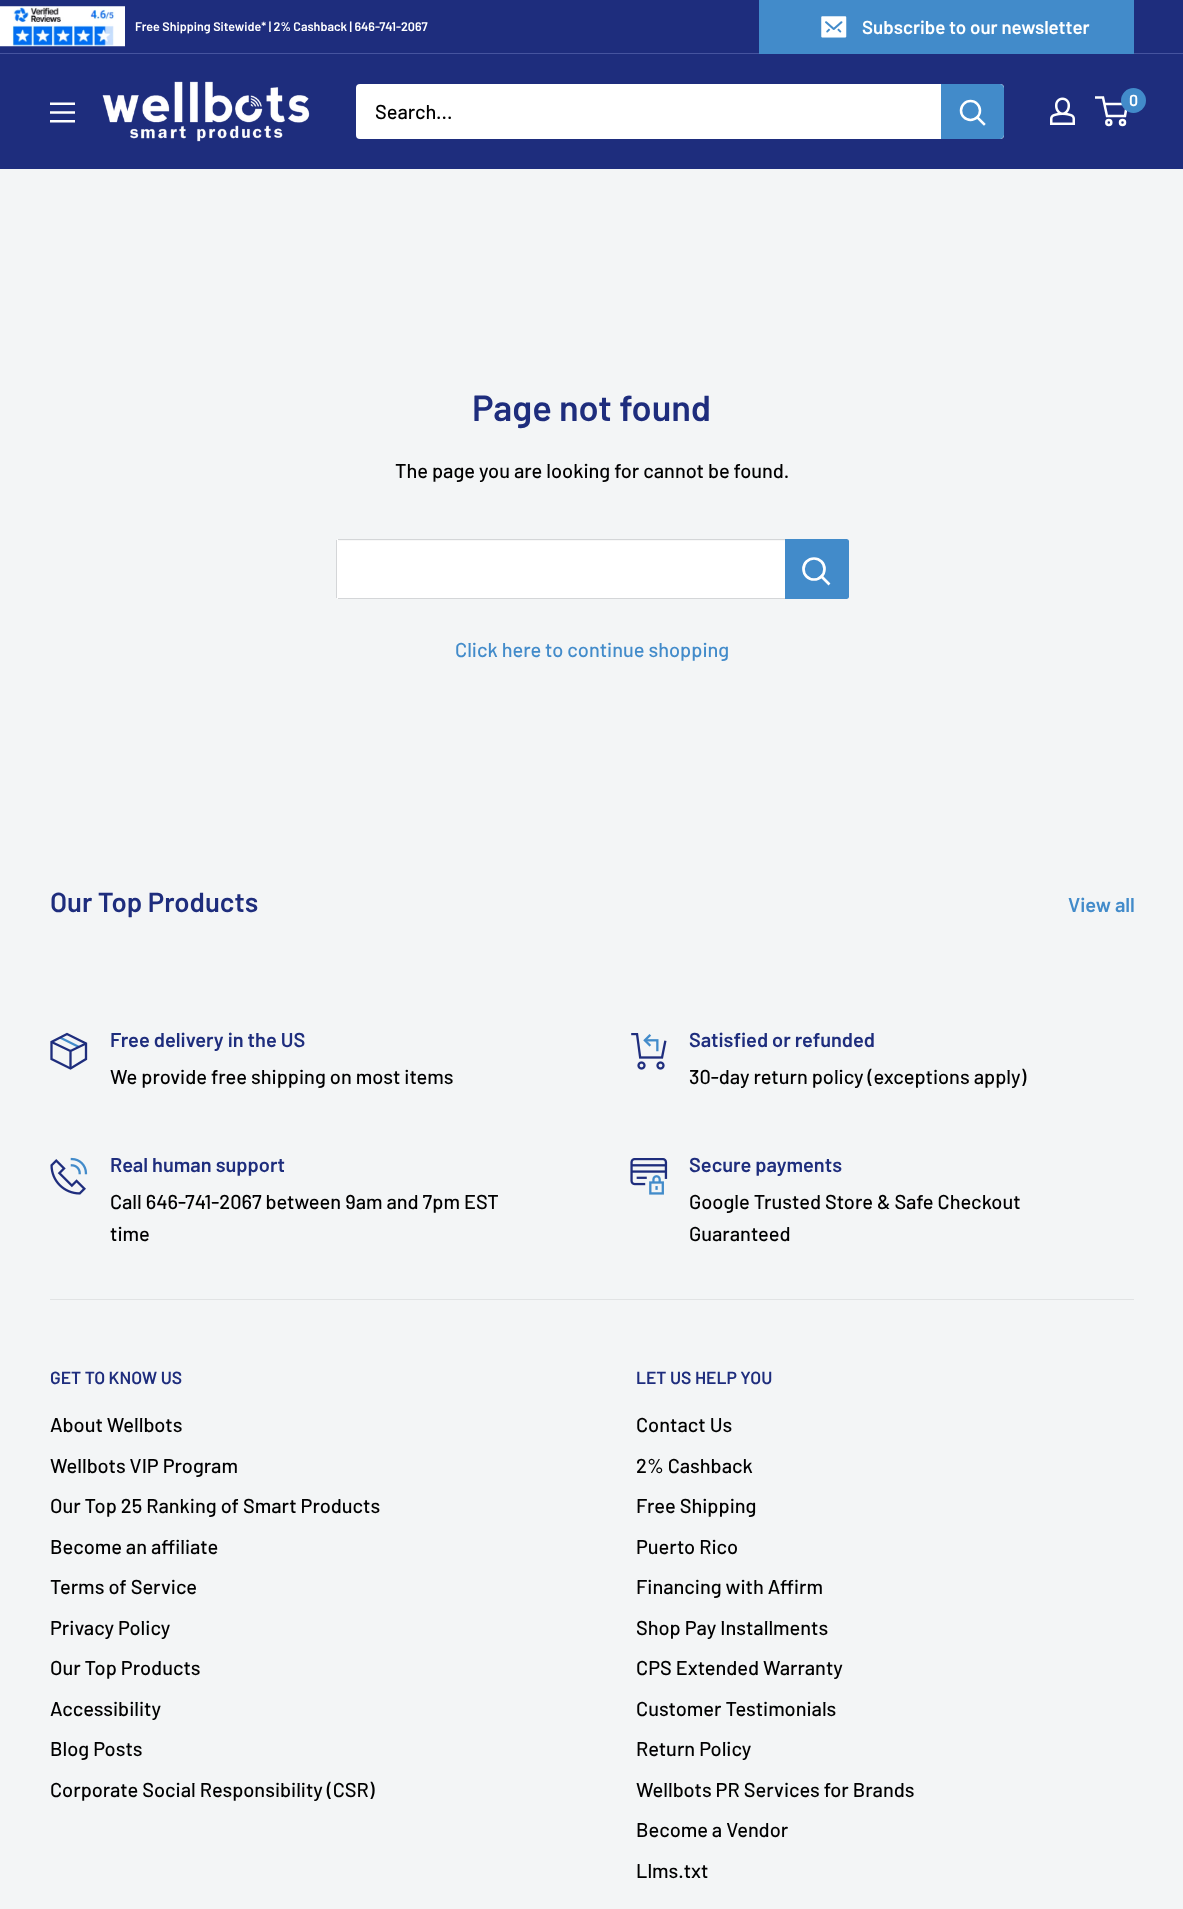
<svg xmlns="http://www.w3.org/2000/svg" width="1183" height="1909">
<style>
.a{font:600 12.5px Barlow;fill:#fff}
.b{font:600 18.75px Barlow;fill:#fff}
.c{font:600 16px Barlow;fill:#fff}
.d{font:500 20px Barlow;fill:#000}
.e{font:600 36.25px Barlow;fill:#1e2d7d}
.f{font:500 20px Barlow;fill:#428bca}
.g{font:600 27.5px Barlow;fill:#1e2d7d}
.h{font:600 20px Barlow;fill:#428bca}
.i{font:600 20px Barlow;fill:#1e2d7d}
.j{font:600 17.5px Barlow;fill:#1e2d7d}
</style>
<rect width="100%" height="100%" fill="#f3f5f6"/>
<path fill="#1e2d7d" d="M0 0h1183v53H0z"/>
<path fill="#46549f" d="M0 53h1183v1H0z"/>
<image href="1.png" x="0" y="6" width="125" height="41"/>
<path fill="#428bca" d="M759 52v2h375v-53v51z"/>
<path fill="#428bca" d="M759 0h375v52H759z"/>
<image href="2.png" x="821" y="16" width="26" height="22"/>
<path fill="#1e2d7d" d="M0 54h1183v115H0z"/>
<image href="3.png" x="102" y="81" width="208" height="61"/>
<image href="4.png" x="1050" y="97" width="25" height="28"/>
<circle fill="none" stroke="#fff" stroke-width="2.5" cx="1108.8" cy="122.5" r="2.5"/>
<circle fill="none" stroke="#fff" stroke-width="2.5" cx="1122.5" cy="122.5" r="2.5"/>
<path fill="none" stroke="#fff" stroke-width="2.5" d="M1104 104h23l-2 12h-18l-4-18.5h-8"/>
<circle fill="#428bca" cx="1133.5" cy="100.5" r="12.5"/>
<image href="5.png" x="50" y="102" width="25" height="21"/>
<rect fill="#fff" x="356" y="84" width="648" height="55" rx="4"/>
<path fill="#428bca" d="M941 84h59c2 0 4 2 4 4v47c0 2-2 4-4 4h-59z"/>
<path fill="none" stroke="#fff" stroke-width="2.5" stroke-linecap="square" d="M984 124l-6.5-6.5"/>
<circle fill="none" stroke="#fff" stroke-width="2.5" cx="970.5" cy="110.5" r="9.5"/>
<path fill="#fff" d="M338.5 539h446.5v60h-446.5c-1.5 0-2.5-1-2.5-2.5v-55c0-1.5 1-2.5 2.5-2.5z"/>
<path fill="#f8f8f8" d="M339 541h446v-1h-446l-1 1v1z"/>
<path fill="#d4d6d8" d="M338 539h447v1H338z"/>
<path fill="#d4d6d8" d="M338 598h447v1H338z"/>
<path fill="#d4d6d8" d="M336 540h1v58H336z"/>
<path fill="#428bca" d="M785 539h61.5c1.5 0 2.5 1 2.5 2.5v55c0 1.5-1 2.5-2.5 2.5h-61.5z"/>
<path fill="none" stroke="#fff" stroke-width="2.7" stroke-linecap="square" d="M828.5 583.5l-7-7"/>
<circle fill="none" stroke="#fff" stroke-width="2.7" cx="814" cy="569" r="10.5"/>
<path fill="none" stroke="#428bca" stroke-width="2.3" d="M60 1037.5l19 9.5"/>
<path fill="none" stroke="#1e2d7d" stroke-width="2.3" d="M86 1043.5l-15.5 7.5l-19-9m19 9v17.5"/>
<path fill="none" stroke="#1e2d7d" stroke-width="2.3" stroke-linecap="square" d="M86 1043.5v15.5l-15.5 9.5l-19-9.5v-17l15.5-8z"/>
<image href="6.png" x="631" y="1033" width="36" height="37"/>
<image href="7.png" x="50" y="1157" width="38" height="38"/>
<image href="8.png" x="630" y="1158" width="38" height="37"/>
<path fill="#e1e3e4" d="M50 1299h1084v1H50z"/>
<text class="a" x="135" y="31">Free Shipping Sitewide* | 2% Cashback | 646-741-2067</text>
<text class="b" x="862" y="34">Subscribe to our newsletter</text>
<text class="c" x="1129" y="106">0</text>
<text class="d" x="375" y="119">Search...</text>
<text class="e" x="472" y="421">Page not found</text>
<text class="d" x="395" y="478">The page you are looking for cannot be found.</text>
<text class="f" x="455" y="657">Click here to continue shopping</text>
<text class="g" x="50" y="912">Our Top Products</text>
<text class="h" x="1068" y="912">View all</text>
<text class="i" x="110" y="1047">Free delivery in the US</text>
<text class="d" x="110" y="1084">We provide free shipping on most items</text>
<text class="i" x="689" y="1047">Satisfied or refunded</text>
<text class="d" x="689" y="1084">30-day return policy (exceptions apply)</text>
<text class="i" x="110" y="1172">Real human support</text>
<text class="d" x="110" y="1209">Call 646-741-2067 between 9am and 7pm EST</text>
<text class="d" x="110" y="1241">time</text>
<text class="i" x="689" y="1172">Secure payments</text>
<text class="d" x="689" y="1209">Google Trusted Store &amp; Safe Checkout</text>
<text class="d" x="689" y="1241">Guaranteed</text>
<text class="j" x="50" y="1384">GET TO KNOW US</text>
<text class="d" x="50" y="1432">About Wellbots</text>
<text class="d" x="50" y="1473">Wellbots VIP Program</text>
<text class="d" x="50" y="1513">Our Top 25 Ranking of Smart Products</text>
<text class="d" x="50" y="1554">Become an affiliate</text>
<text class="d" x="50" y="1594">Terms of Service</text>
<text class="d" x="50" y="1635">Privacy Policy</text>
<text class="d" x="50" y="1675">Our Top Products</text>
<text class="d" x="50" y="1716">Accessibility</text>
<text class="d" x="50" y="1756">Blog Posts</text>
<text class="d" x="50" y="1797">Corporate Social Responsibility (CSR)</text>
<text class="j" x="636" y="1384">LET US HELP YOU</text>
<text class="d" x="636" y="1432">Contact Us</text>
<text class="d" x="636" y="1473">2% Cashback</text>
<text class="d" x="636" y="1513">Free Shipping</text>
<text class="d" x="636" y="1554">Puerto Rico</text>
<text class="d" x="636" y="1594">Financing with Affirm</text>
<text class="d" x="636" y="1635">Shop Pay Installments</text>
<text class="d" x="636" y="1675">CPS Extended Warranty</text>
<text class="d" x="636" y="1716">Customer Testimonials</text>
<text class="d" x="636" y="1756">Return Policy</text>
<text class="d" x="636" y="1797">Wellbots PR Services for Brands</text>
<text class="d" x="636" y="1837">Become a Vendor</text>
<text class="d" x="636" y="1878">Llms.txt</text>
</svg>
